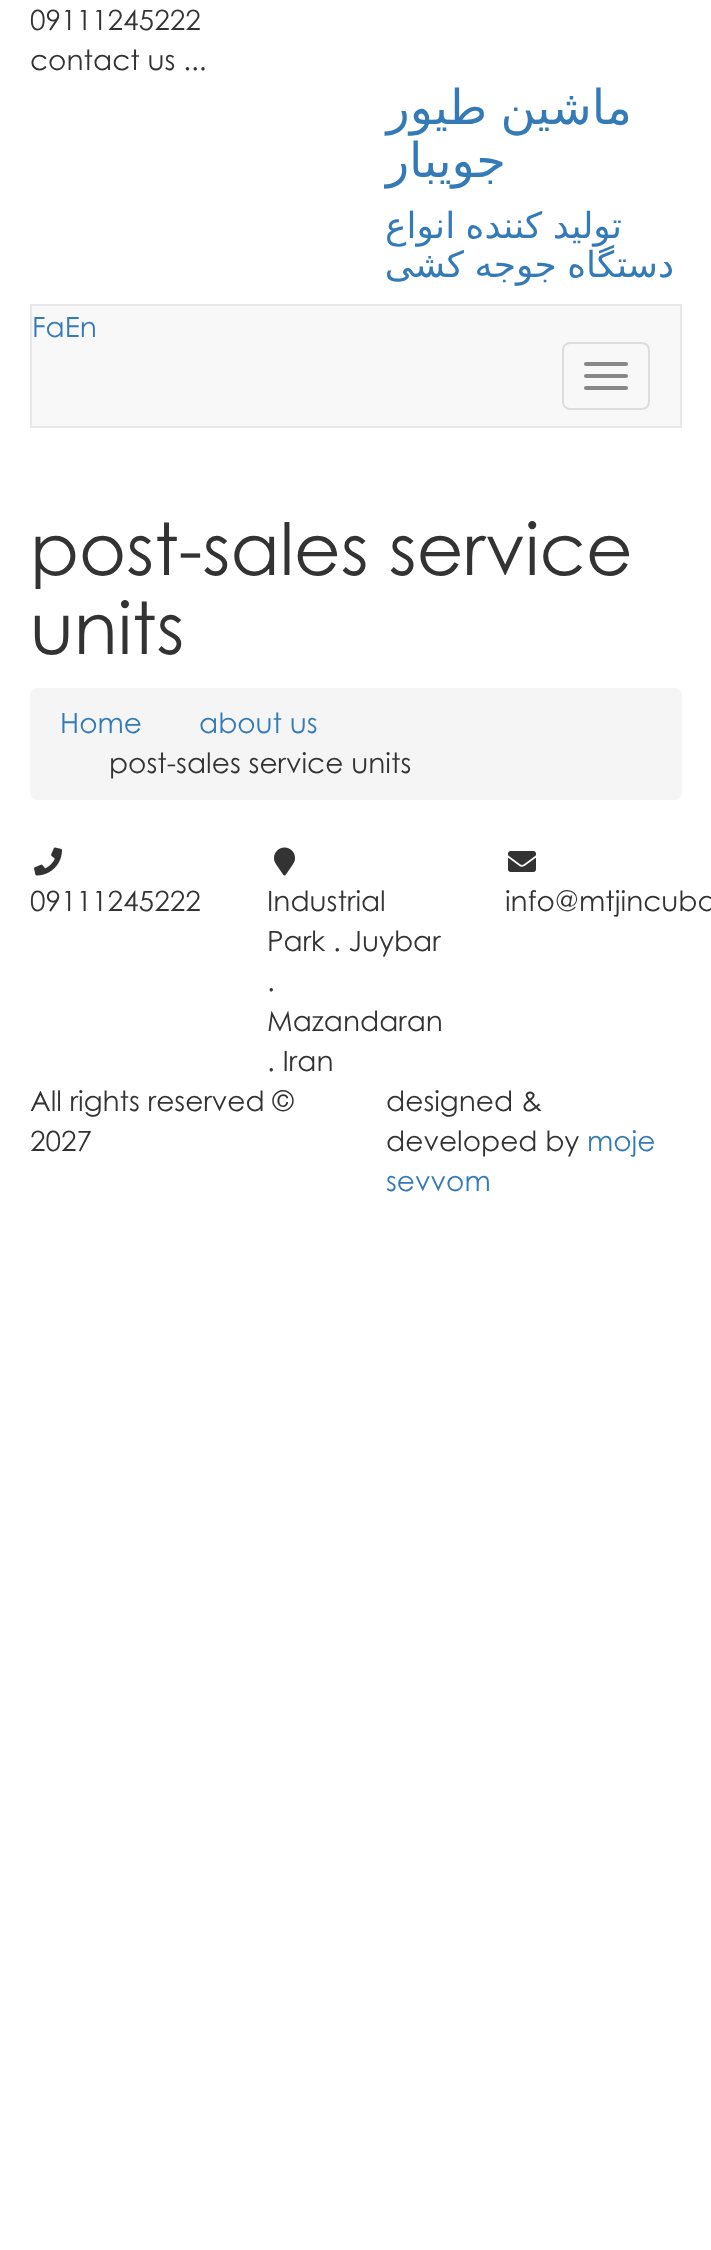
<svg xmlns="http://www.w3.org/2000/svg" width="711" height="2250">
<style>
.a{font:28px Century Gothic;fill:#333}
.b{font:48px DejaVu Sans;direction:rtl;fill:#337ab7}
.c{font:36px DejaVu Sans;direction:rtl;fill:#337ab7}
.d{font:28px Century Gothic;fill:#337ab7}
.e{font:72px Century Gothic;fill:#333}
</style>
<rect width="100%" height="100%" fill="#fff"/>
<path fill="#f8f8f8" stroke="#e7e7e7" stroke-width="2" d="M31 305h650v122H31z"/>
<rect fill="none" stroke="#ddd" stroke-width="2" x="563" y="343" width="86" height="66" rx="7"/>
<rect fill="#888" x="584" y="362" width="44" height="4" rx="2"/>
<rect fill="#888" x="584" y="374" width="44" height="4" rx="2"/>
<rect fill="#888" x="584" y="386" width="44" height="4" rx="2"/>
<rect fill="#f5f5f5" x="30" y="688" width="652" height="112" rx="8"/>
<image href="1.png" x="34" y="847" width="28" height="29"/>
<image href="2.png" x="274" y="847" width="21" height="29"/>
<image href="3.png" x="508" y="851" width="28" height="21"/>
<text class="a" x="30" y="30">09111245222</text>
<text class="a" x="30" y="70">contact us ...</text>
<text class="b" x="632" y="124" word-spacing="-2">ماشین طیور</text>
<text class="b" x="506" y="177">جویبار</text>
<text class="c" x="622" y="238" word-spacing="-1">تولید کننده انواع</text>
<text class="c" x="674" y="277" word-spacing="-1">دستگاه جوجه کشی</text>
<text class="d" x="32" y="337">FaEn</text>
<text class="e" x="30" y="575">post-sales service</text>
<text class="e" x="30" y="654">units</text>
<text class="d" x="60" y="733">Home</text>
<text class="d" x="199" y="733">about us</text>
<text class="a" x="109" y="773">post-sales service units</text>
<text class="a" x="30" y="911">09111245222</text>
<text class="a" x="267" y="911">Industrial</text>
<text class="a" x="267" y="951">Park . Juybar</text>
<text class="a" x="267" y="991">.</text>
<text class="a" x="267" y="1031">Mazandaran</text>
<text class="a" x="267" y="1071">. Iran</text>
<text class="a" x="505" y="911">info@mtjincuba</text>
<text class="a" x="30" y="1111">All rights reserved ©</text>
<text class="a" x="30" y="1151">2027</text>
<text class="a" x="386" y="1111">designed &amp;</text>
<text class="a" x="386" y="1151">developed by</text>
<text class="d" x="587" y="1151">moje</text>
<text class="d" x="386" y="1191">sevvom</text>
</svg>
